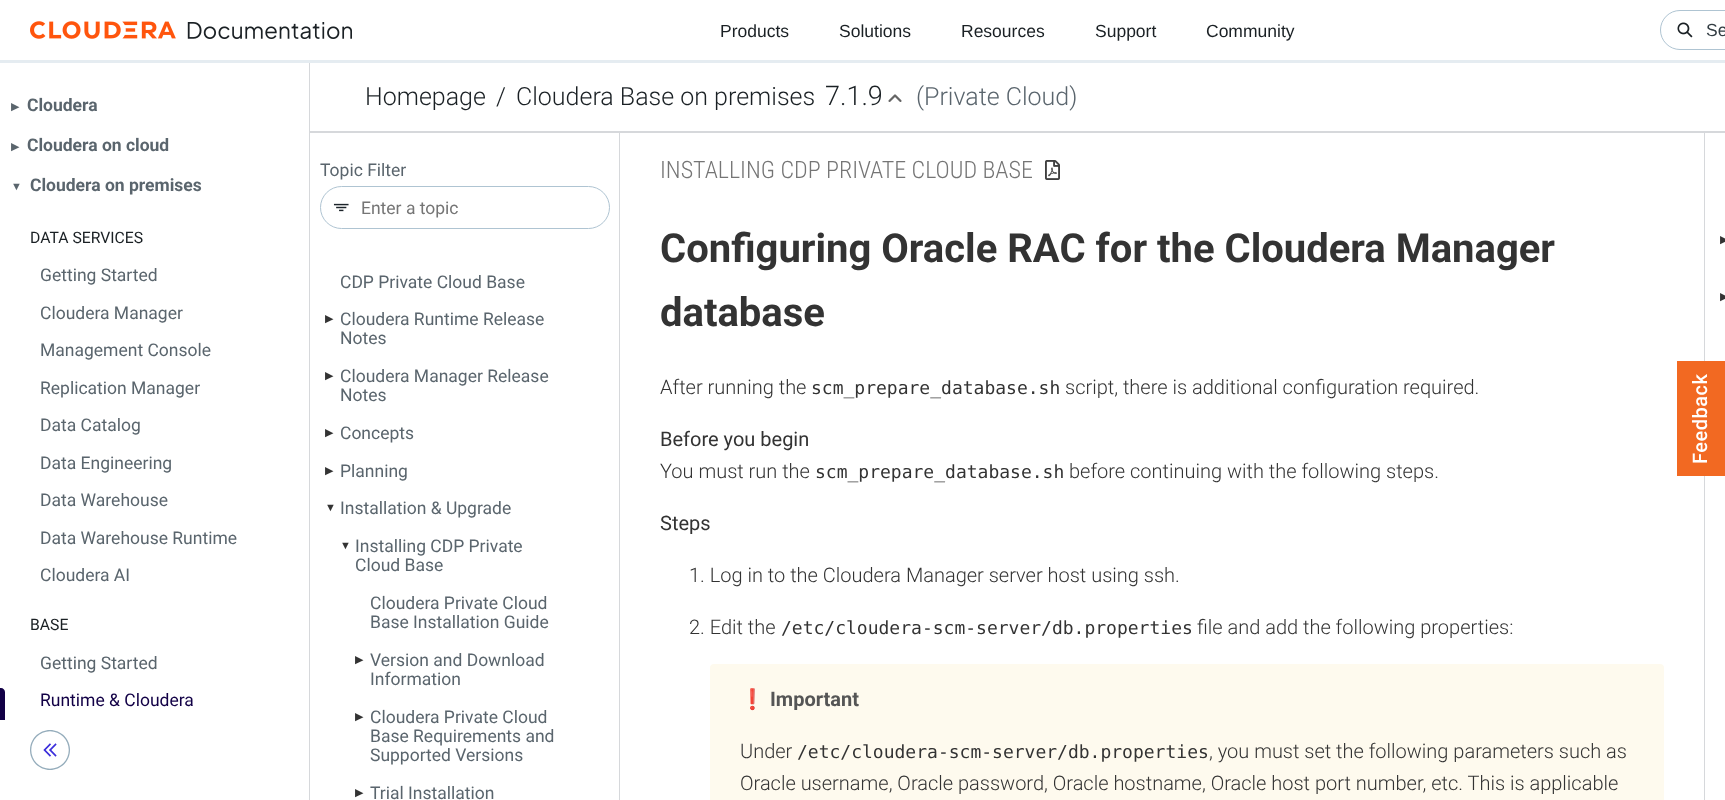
<svg xmlns="http://www.w3.org/2000/svg" width="1725" height="800">
<style>
.a{font:17.5px Liberation Sans;fill:#1a2024}
.b{font:17.5px Liberation Sans;fill:#333d43}
.c{font:11px DejaVu Sans;fill:#5a656d}
.d{font:bold 17.5px Roboto;fill:#5a656d}
.e{font:11px Liberation Sans;fill:#5a656d}
.f{font:15.75px Roboto;fill:#1a2024}
.g{font:17.5px Roboto;fill:#5a656d}
.h{font:17.5px Roboto;fill:#120046}
.i{font:300 25px Roboto;fill:#1a2024}
.j{font:300 27px Roboto;fill:#1a2024}
.k{font:300 25px Roboto;fill:#5a656d}
.l{font:17.5px Roboto;fill:#757575}
.m{font:11px DejaVu Sans;fill:#333}
.n{font:11px Liberation Sans;fill:#333}
.o{font:300 24px Roboto Condensed;fill:#757575}
.p{font:bold 40px Roboto;fill:#333}
.q{font:300 20px Roboto;fill:#333}
.r{font:18px DejaVu Sans Mono;fill:#333}
.s{font:20px Roboto;fill:#333}
.t{font:bold 20px Noto Color Emoji;fill:#555}
.u{font:bold 20px Roboto;fill:#555}
.v{font:500 20px Roboto;letter-spacing:0.5px;fill:#fff}
</style>
<defs>
<clipPath id="clip1"><path d="M310 131h310v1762H310z"/></clipPath>
</defs>
<rect width="100%" height="100%" fill="#fff"/>
<path fill="#e5ecf1" d="M0 60h1725v3H0z"/>
<image href="1.png" x="30" y="21" width="322" height="18"/>
<rect fill="none" stroke="#afc4d2" x="1660.5" y="10.5" width="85" height="39" rx="19.5"/>
<image href="2.png" x="1677" y="22" width="16" height="16"/>
<path fill="#d6d8db" d="M309 63h1v737H309z"/>
<path fill="#120046" d="M0 688h1c2 0 4 2 4 4v42c0 2-2 4-4 4h-1z"/>
<path fill="#fff" d="M0 720h5v18H0z"/>
<image href="3.png" x="30" y="730" width="40" height="40"/>
<g clip-path="url(#clip1)">
<path fill="#d6d8db" fill-rule="evenodd" d="M186 8h558v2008h-558zm123 124h310v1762h-310z"/>
</g>
<path fill="#d6d8db" d="M1704 131h1v669H1704z"/>
<path fill="#d6d8db" d="M310 131h1415v2H310z"/>
<image href="4.png" x="888" y="94" width="14" height="8"/>
<rect fill="none" stroke="#afc4d2" x="320.5" y="186.5" width="289" height="42" rx="21"/>
<image href="5.png" x="333" y="203" width="16" height="9"/>
<image href="6.png" x="1045" y="160" width="15" height="20"/>
<rect fill="#fefaee" x="710" y="664" width="954" height="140" rx="4"/>
<path fill="#f26922" d="M1677 361h48v115H1677z"/>
<text class="a" x="720" y="37">Products</text>
<text class="a" x="839" y="37">Solutions</text>
<text class="a" x="961" y="37">Resources</text>
<text class="a" x="1095" y="37">Support</text>
<text class="a" x="1206" y="37">Community</text>
<text class="b" x="1706" y="36">Se</text>
<text class="c" x="11" y="110">▶︎</text>
<text class="d" x="27" y="111">Cloudera</text>
<text class="c" x="11" y="150">▶︎</text>
<text class="d" x="27" y="151">Cloudera on cloud</text>
<text class="e" x="11" y="190">▼</text>
<text class="d" x="30" y="191">Cloudera on premises</text>
<text class="f" x="30" y="243">DATA SERVICES</text>
<text class="g" x="40" y="281">Getting Started</text>
<text class="g" x="40" y="319">Cloudera Manager</text>
<text class="g" x="40" y="356">Management Console</text>
<text class="g" x="40" y="394">Replication Manager</text>
<text class="g" x="40" y="431">Data Catalog</text>
<text class="g" x="40" y="469">Data Engineering</text>
<text class="g" x="40" y="506">Data Warehouse</text>
<text class="g" x="40" y="544">Data Warehouse Runtime</text>
<text class="g" x="40" y="581">Cloudera AI</text>
<text class="f" x="30" y="630">BASE</text>
<text class="g" x="40" y="669">Getting Started</text>
<text class="h" x="40" y="706">Runtime &amp; Cloudera</text>
<text class="i" x="365" y="105">Homepage</text>
<text class="i" x="496" y="105">/</text>
<text class="i" x="516" y="105">Cloudera Base on premises</text>
<text class="j" x="825" y="105">7.1.9</text>
<text class="k" x="916" y="105">(Private Cloud)</text>
<text class="g" x="320" y="176">Topic Filter</text>
<text class="l" x="361" y="214">Enter a topic</text>
<text class="g" x="340" y="288">CDP Private Cloud Base</text>
<text class="m" x="325" y="322">▶︎</text>
<text class="g" x="340" y="325">Cloudera Runtime Release</text>
<text class="g" x="340" y="344">Notes</text>
<text class="m" x="325" y="379">▶︎</text>
<text class="g" x="340" y="382">Cloudera Manager Release</text>
<text class="g" x="340" y="401">Notes</text>
<text class="m" x="325" y="436">▶︎</text>
<text class="g" x="340" y="439">Concepts</text>
<text class="m" x="325" y="474">▶︎</text>
<text class="g" x="340" y="477">Planning</text>
<text class="n" x="325" y="511">▼</text>
<text class="g" x="340" y="514">Installation &amp; Upgrade</text>
<text class="n" x="340" y="549">▼</text>
<text class="g" x="355" y="552">Installing CDP Private</text>
<text class="g" x="355" y="571">Cloud Base</text>
<text class="g" x="370" y="609">Cloudera Private Cloud</text>
<text class="g" x="370" y="628">Base Installation Guide</text>
<text class="m" x="355" y="663">▶︎</text>
<text class="g" x="370" y="666">Version and Download</text>
<text class="g" x="370" y="685">Information</text>
<text class="m" x="355" y="720">▶︎</text>
<text class="g" x="370" y="723">Cloudera Private Cloud</text>
<text class="g" x="370" y="742">Base Requirements and</text>
<text class="g" x="370" y="761">Supported Versions</text>
<text class="m" x="355" y="796">▶︎</text>
<text class="g" x="370" y="799">Trial Installation</text>
<text class="o" x="660" y="178">INSTALLING CDP PRIVATE CLOUD BASE</text>
<text class="p" x="660" y="262">Configuring Oracle RAC for the Cloudera Manager</text>
<text class="p" x="660" y="326">database</text>
<text class="q" x="660" y="394">After running the</text>
<text class="r" x="811" y="394">scm_prepare_database.sh</text>
<text class="q" x="1065" y="394">script, there is additional configuration required.</text>
<text class="s" x="660" y="446">Before you begin</text>
<text class="q" x="660" y="478">You must run the</text>
<text class="r" x="815" y="478">scm_prepare_database.sh</text>
<text class="q" x="1069" y="478">before continuing with the following steps.</text>
<text class="s" x="660" y="530">Steps</text>
<text class="q" x="689" y="582">1. Log in to the Cloudera Manager server host using ssh.</text>
<text class="q" x="689" y="634">2. Edit the</text>
<text class="r" x="781" y="634">/etc/cloudera-scm-server/db.properties</text>
<text class="q" x="1197" y="634">file and add the following properties:</text>
<text class="t" x="740" y="706">❗️</text>
<text class="u" x="770" y="706">Important</text>
<text class="q" x="740" y="758">Under</text>
<text class="r" x="797" y="758">/etc/cloudera-scm-server/db.properties</text>
<text class="q" x="1209" y="758">, you must set the following parameters such as</text>
<text class="q" x="740" y="790">Oracle username, Oracle password, Oracle hostname, Oracle host port number, etc. This is applicable</text>
<text class="m" x="1720" y="243">▶</text>
<text class="m" x="1720" y="300">▶</text>
<text class="v" x="1707" y="464" transform="rotate(-90 1707 464)">Feedback</text>
</svg>
